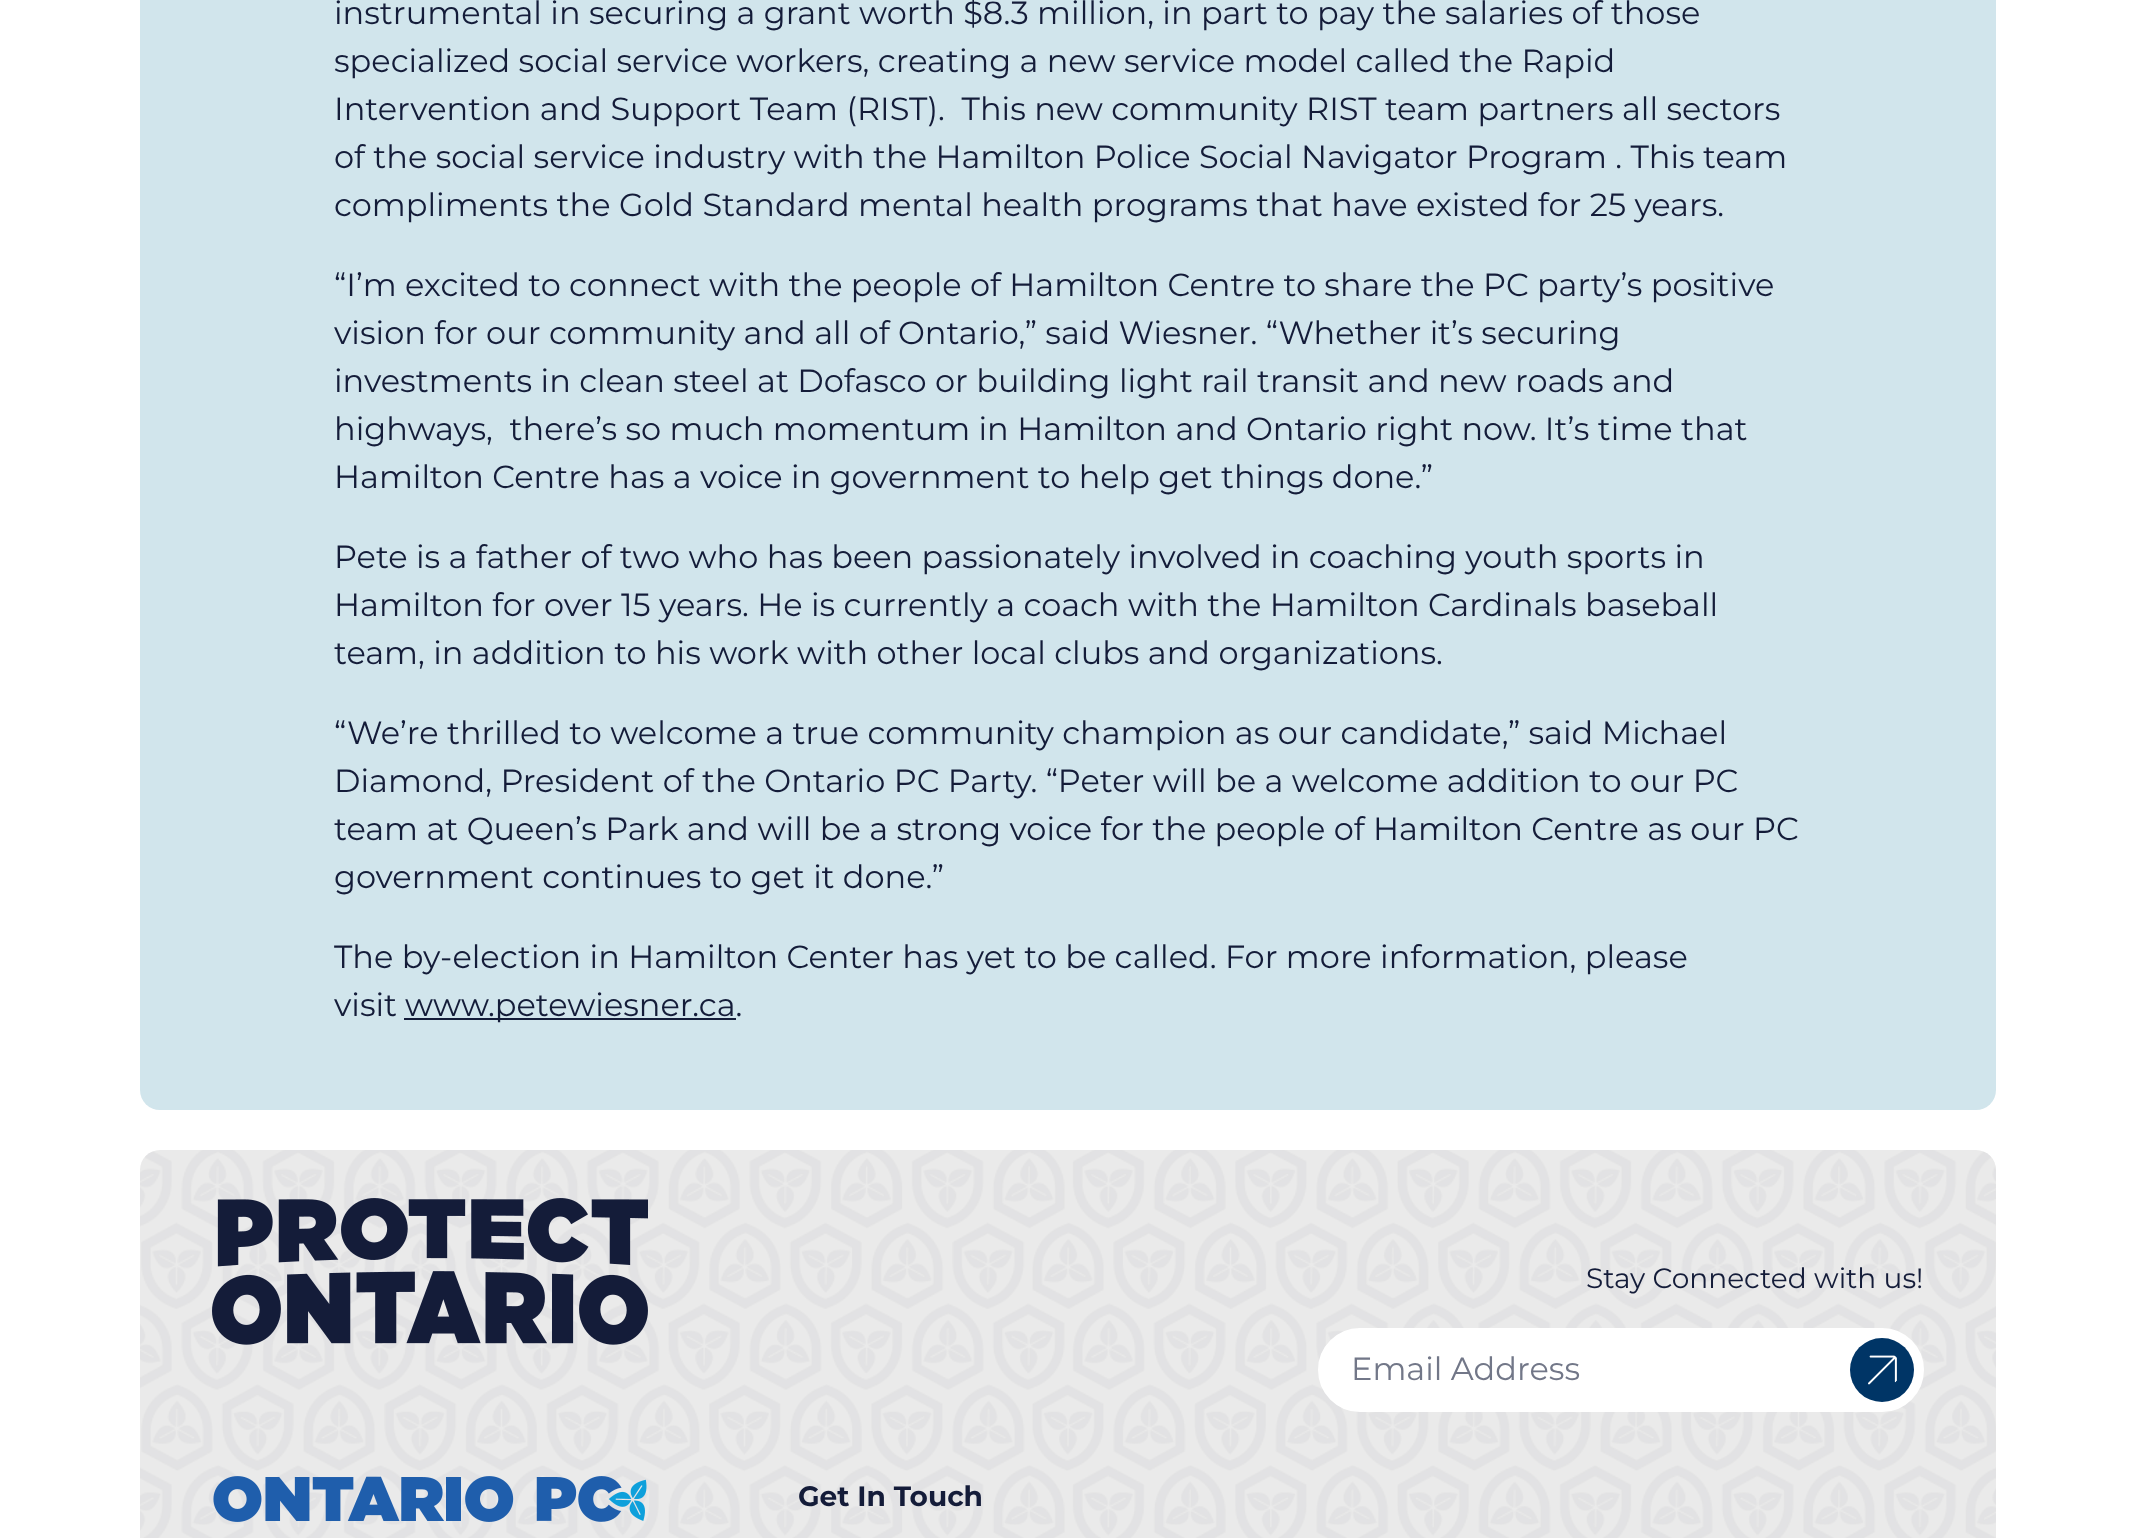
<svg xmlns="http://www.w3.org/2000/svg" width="2134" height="1538">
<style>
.a{font:32px Montserrat;fill:#141c39}
.b{font:28px Montserrat;fill:#141c39}
.c{font:32px Montserrat;fill:#727788}
.d{font:bold 28px Montserrat;fill:#141c39}
</style>
<rect width="100%" height="100%" fill="#fff"/>
<rect fill="#d1e5ec" x="140" y="-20" width="1856" height="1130" rx="20"/>
<path fill="#141c39" d="M404 1018h332v2H404z"/>
<rect fill="#eaeaea" x="140" y="1150" width="1856" height="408" rx="20"/>
<image href="1.png" x="140" y="1150" width="1856" height="388"/>
<image href="2.png" x="212" y="1198" width="436" height="147"/>
<path fill="#fff" stroke="#fff" stroke-width="2" d="M1360 1329h465v82h-465c-22.5 0-41-18.5-41-41c0-22.5 18.5-41 41-41z"/>
<path fill="#fff" stroke="#fff" stroke-width="2" d="M1825 1329h57c22.5 0 41 18.5 41 41c0 22.5-18.5 41-41 41h-57z"/>
<circle fill="#003566" cx="1882" cy="1370" r="32"/>
<image href="3.png" x="1868" y="1355" width="29" height="30"/>
<image href="4.png" x="213" y="1476" width="434" height="46"/>
<text class="a" x="334" y="24">instrumental in securing a grant worth $8.3 million, in part to pay the salaries of those</text>
<text class="a" x="334" y="72">specialized social service workers, creating a new service model called the Rapid</text>
<text class="a" xml:space="preserve" x="334" y="120">Intervention and Support Team (RIST).  This new community RIST team partners all sectors</text>
<text class="a" x="334" y="168">of the social service industry with the Hamilton Police Social Navigator Program . This team</text>
<text class="a" x="334" y="216">compliments the Gold Standard mental health programs that have existed for 25 years.</text>
<text class="a" x="334" y="296">“I’m excited to connect with the people of Hamilton Centre to share the PC party’s positive</text>
<text class="a" x="334" y="344">vision for our community and all of Ontario,” said Wiesner. “Whether it’s securing</text>
<text class="a" x="334" y="392">investments in clean steel at Dofasco or building light rail transit and new roads and</text>
<text class="a" xml:space="preserve" x="334" y="440">highways,  there’s so much momentum in Hamilton and Ontario right now. It’s time that</text>
<text class="a" x="334" y="488">Hamilton Centre has a voice in government to help get things done.”</text>
<text class="a" x="334" y="568">Pete is a father of two who has been passionately involved in coaching youth sports in</text>
<text class="a" x="334" y="616">Hamilton for over 15 years. He is currently a coach with the Hamilton Cardinals baseball</text>
<text class="a" x="334" y="664">team, in addition to his work with other local clubs and organizations.</text>
<text class="a" x="334" y="744">“We’re thrilled to welcome a true community champion as our candidate,” said Michael</text>
<text class="a" x="334" y="792">Diamond, President of the Ontario PC Party. “Peter will be a welcome addition to our PC</text>
<text class="a" x="334" y="840">team at Queen’s Park and will be a strong voice for the people of Hamilton Centre as our PC</text>
<text class="a" x="334" y="888">government continues to get it done.”</text>
<text class="a" x="334" y="968">The by-election in Hamilton Center has yet to be called. For more information, please</text>
<text class="a" x="334" y="1016">visit</text>
<text class="a" x="405" y="1016">www.petewiesner.ca.</text>
<text class="b" x="1586" y="1288">Stay Connected with us!</text>
<text class="c" x="1351" y="1380">Email Address</text>
<text class="d" x="798" y="1506">Get In Touch</text>
</svg>
